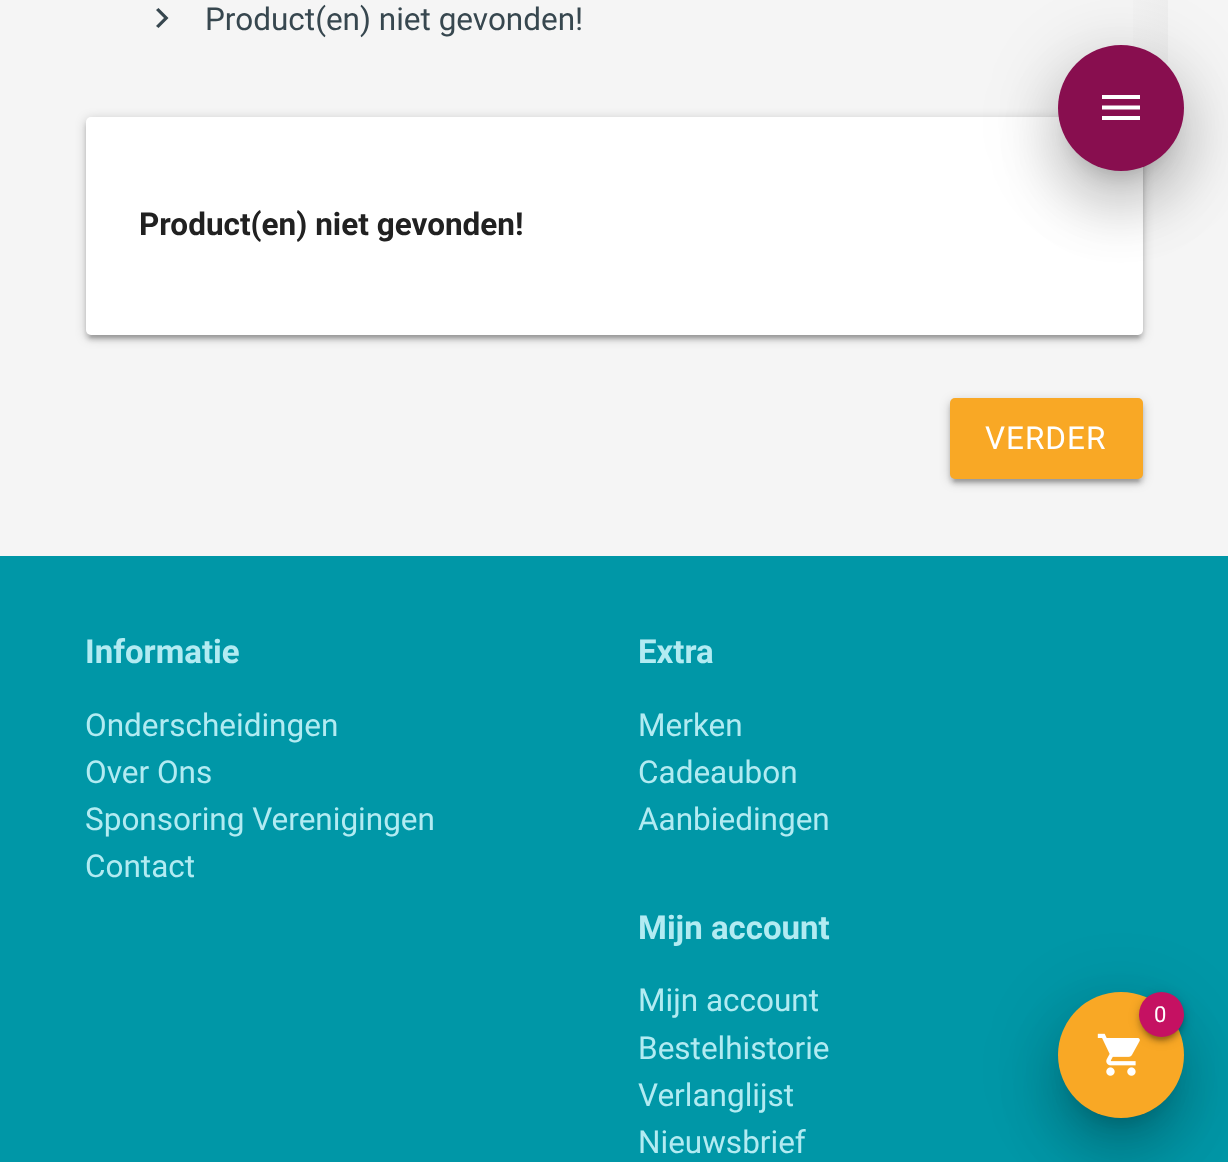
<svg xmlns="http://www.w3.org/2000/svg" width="1228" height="1162">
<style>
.a{font:31.5px Roboto;fill:#37474f}
.b{font:bold 31.5px Roboto;fill:#212121}
.c{font:31.5px Roboto;letter-spacing:1px;fill:#fff}
.d{font:bold 33px Roboto;fill:#b2ebf2}
.e{font:31.5px Roboto;fill:#b2ebf2}
.f{font:22px Roboto;letter-spacing:1px;fill:#fff}
</style>
<defs>
<linearGradient id="g1" gradientUnits="userSpaceOnUse" x1="1114" y1="-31" x2="1168" y2="-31"><stop offset="0" stop-color="#f5f5f5"/><stop offset="1" stop-color="#eee"/></linearGradient>
</defs>
<rect width="100%" height="100%" fill="#f5f5f5"/>
<path fill="url(#g1)" d="M1133 0h35v63H1133z"/>
<rect fill="#00000033" filter="blur(5.5px)" x="86" y="119" width="1057" height="219" rx="5"/>
<path fill="#0000001f" filter="blur(1px)" d="M90 128h1049v210H90z"/>
<rect fill="#00000024" filter="blur(2px)" x="86" y="122" width="1057" height="218" rx="5"/>
<rect fill="#fff" x="86" y="117" width="1057" height="218" rx="5"/>
<rect fill="#00000033" filter="blur(11px)" x="1073" y="79" width="95" height="94" rx="47"/>
<rect fill="#0000001f" filter="blur(34px)" x="1046" y="47" width="149" height="149" rx="74.5"/>
<rect fill="#00000024" filter="blur(27px)" x="1053" y="77" width="135" height="135" rx="67.5"/>
<circle fill="#880e4f" cx="1121" cy="108" r="63"/>
<path fill="#fff" d="M1102 95h38v4h-38zm0 14.5v-4h38v4zm0 10.5v-4h38v4z"/>
<path fill="#37474f" d="M158.5 8l10 10l-10 10l-2.5-2l8-8l-8-8z"/>
<rect fill="#00000033" filter="blur(5.5px)" x="950" y="401" width="193" height="81" rx="5"/>
<path fill="#0000001f" filter="blur(1px)" d="M954 410h185v72H954z"/>
<rect fill="#00000024" filter="blur(2px)" x="950" y="403" width="193" height="81" rx="5"/>
<rect fill="#f9a825" x="950" y="398" width="193" height="81" rx="5"/>
<path fill="#0097a7" d="M0 556h1228v606H0z"/>
<rect fill="#00000033" filter="blur(11px)" x="1073" y="1026" width="95" height="95" rx="47.5"/>
<rect fill="#0000001f" filter="blur(34px)" x="1046" y="995" width="149" height="148" rx="74"/>
<rect fill="#00000024" filter="blur(27px)" x="1053" y="1024" width="135" height="135" rx="67.5"/>
<circle fill="#f9a825" cx="1121" cy="1055" r="63"/>
<image href="1.png" x="1097" y="1033" width="43" height="43"/>
<rect fill="#00000033" filter="blur(5.5px)" x="1139" y="995" width="45" height="45" rx="22.5"/>
<rect fill="#0000001f" filter="blur(1px)" x="1143" y="1004" width="36" height="36" rx="18"/>
<rect fill="#00000024" filter="blur(2px)" x="1139" y="997" width="45" height="45" rx="22.5"/>
<circle fill="#c51162" cx="1161.5" cy="1014.5" r="22.5"/>
<text class="a" x="205" y="30">Product(en) niet gevonden!</text>
<text class="b" x="139" y="235">Product(en) niet gevonden!</text>
<text class="c" x="985" y="449">VERDER</text>
<text class="d" x="85" y="663">Informatie</text>
<text class="e" x="85" y="736">Onderscheidingen</text>
<text class="e" x="85" y="783">Over Ons</text>
<text class="e" x="85" y="830">Sponsoring Verenigingen</text>
<text class="e" x="85" y="877">Contact</text>
<text class="d" x="638" y="663">Extra</text>
<text class="e" x="638" y="736">Merken</text>
<text class="e" x="638" y="783">Cadeaubon</text>
<text class="e" x="638" y="830">Aanbiedingen</text>
<text class="d" x="638" y="939">Mijn account</text>
<text class="e" x="638" y="1011">Mijn account</text>
<text class="e" x="638" y="1059">Bestelhistorie</text>
<text class="e" x="638" y="1106">Verlanglijst</text>
<text class="e" x="638" y="1153">Nieuwsbrief</text>
<text class="f" x="1154" y="1022">0</text>
</svg>
